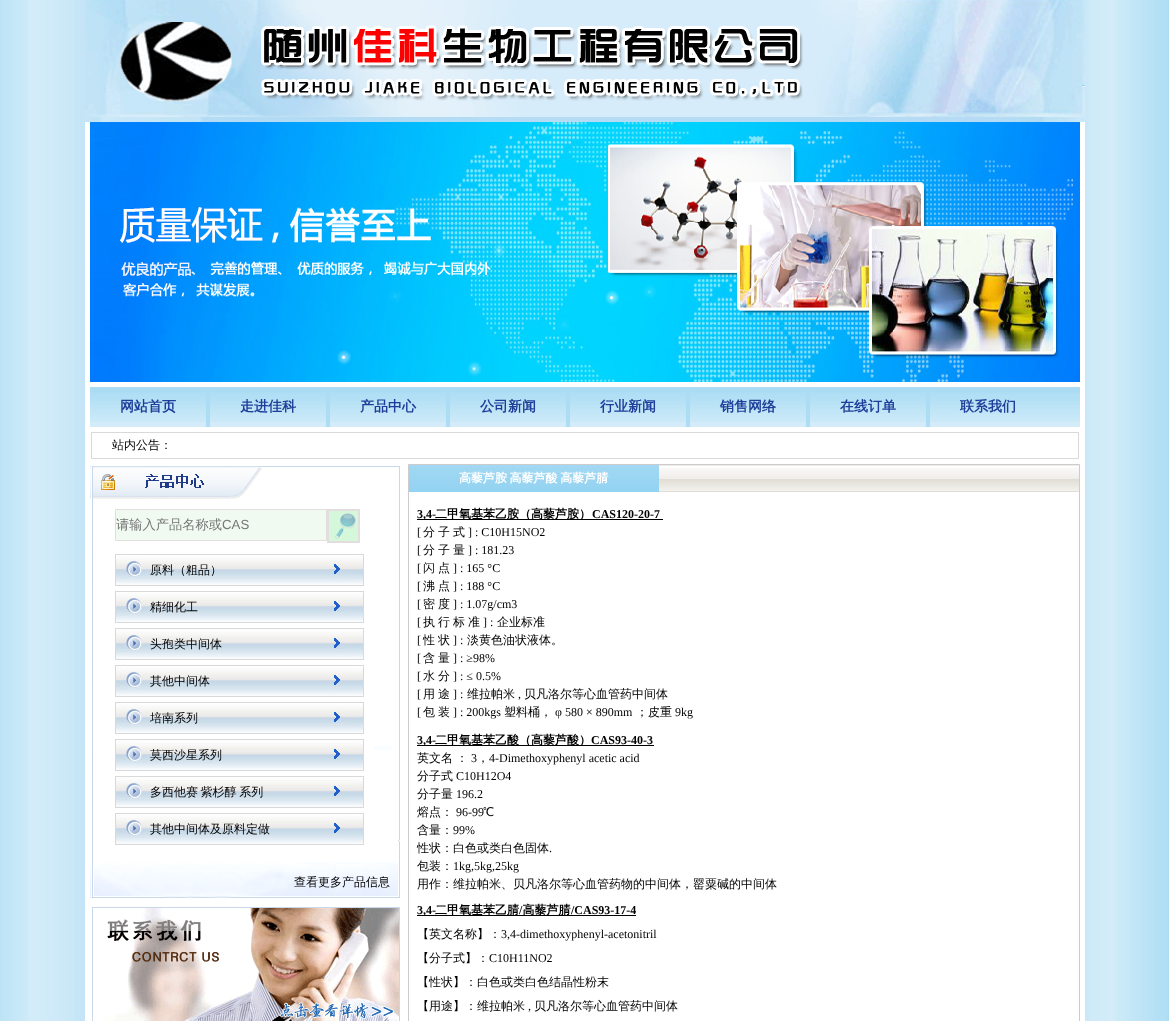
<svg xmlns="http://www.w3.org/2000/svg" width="1169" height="1021">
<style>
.a{font:bold 14px WenQuanYi Zen Hei;fill:#1e3e99}
.b{font:500 12px WenQuanYi Zen Hei;fill:#000}
.c{font:500 13.25px WenQuanYi Zen Hei;fill:#757575}
.d{font:13.25px Liberation Sans;fill:#757575}
.e{font:bold 12px WenQuanYi Zen Hei;fill:#fff}
.f{font:bold 12px Liberation Serif;fill:#000}
.g{font:bold 12px WenQuanYi Zen Hei;fill:#000}
.h{font:12px Liberation Serif;fill:#000}
</style>
<rect width="100%" height="100%" fill="#fff"/>
<image href="1.png" x="0" y="0" width="1169" height="1021"/>
<image href="2.png" x="85" y="0" width="1000" height="117"/>
<path fill="#fff" d="M85 122h1000v899H85z"/>
<image href="3.png" x="90" y="122" width="990" height="260"/>
<image href="4.png" x="90" y="387" width="990" height="40"/>
<path fill="#adddf4" d="M206 387h4v40H206z"/>
<path fill="#adddf4" d="M326 387h4v40H326z"/>
<path fill="#adddf4" d="M446 387h4v40H446z"/>
<path fill="#adddf4" d="M566 387h4v40H566z"/>
<path fill="#adddf4" d="M686 387h4v40H686z"/>
<path fill="#adddf4" d="M806 387h4v40H806z"/>
<path fill="#adddf4" d="M926 387h4v40H926z"/>
<path fill="none" stroke="#d9d9d9" d="M91.5 432.5h987v26H91.5z"/>
<image href="5.png" x="90" y="466" width="310" height="432"/>
<path fill="#f0faf1" stroke="#e3dddd" d="M115.5 509.5h211v31H115.5z"/>
<path fill="none" stroke="#e3dddd" stroke-width="2" d="M328 510h31v32H328z"/>
<image href="6.png" x="329" y="511" width="29" height="30"/>
<image href="7.png" x="115" y="554" width="249" height="32"/>
<image href="7.png" x="115" y="591" width="249" height="32"/>
<image href="7.png" x="115" y="628" width="249" height="32"/>
<image href="7.png" x="115" y="665" width="249" height="32"/>
<image href="7.png" x="115" y="702" width="249" height="32"/>
<image href="7.png" x="115" y="739" width="249" height="32"/>
<image href="7.png" x="115" y="776" width="249" height="32"/>
<image href="7.png" x="115" y="813" width="249" height="32"/>
<image href="8.png" x="92" y="907" width="308" height="114"/>
<path fill="none" stroke="#ccc" d="M408.5 464.5h671v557H408.5z"/>
<image href="9.png" x="409" y="465" width="250" height="27"/>
<image href="10.png" x="659" y="465" width="420" height="27"/>
<path fill="#000" d="M417 519h246v1H417z"/>
<path fill="#000" d="M417 745h237v1H417z"/>
<path fill="#000" d="M417 915h219v1H417z"/>
<text class="a" x="120" y="411">网站首页</text>
<text class="a" x="240" y="411">走进佳科</text>
<text class="a" x="360" y="411">产品中心</text>
<text class="a" x="480" y="411">公司新闻</text>
<text class="a" x="600" y="411">行业新闻</text>
<text class="a" x="720" y="411">销售网络</text>
<text class="a" x="840" y="411">在线订单</text>
<text class="a" x="960" y="411">联系我们</text>
<text class="b" x="112" y="449">站内公告：</text>
<text class="c" x="116" y="529">请输入产品名称或</text>
<text class="d" x="222" y="529">CAS</text>
<text class="b" x="150" y="574">原料（粗品）</text>
<text class="b" x="150" y="611">精细化工</text>
<text class="b" x="150" y="648">头孢类中间体</text>
<text class="b" x="150" y="685">其他中间体</text>
<text class="b" x="150" y="722">培南系列</text>
<text class="b" x="150" y="759">莫西沙星系列</text>
<text class="b" x="150" y="796" word-spacing="-1">多西他赛 紫杉醇 系列</text>
<text class="b" x="150" y="833">其他中间体及原料定做</text>
<text class="b" x="294" y="886">查看更多产品信息</text>
<text class="e" x="459" y="482" word-spacing="-1">高藜芦胺 高藜芦酸 高藜芦腈</text>
<text class="f" x="417" y="518">3,4-</text>
<text class="g" x="435" y="518">二甲氧基苯乙胺（高藜芦胺）</text>
<text class="f" x="592" y="518">CAS120-20-7</text>
<text class="h" x="417" y="536">[</text>
<text class="b" x="423" y="536">分</text>
<text class="b" x="438" y="536">子</text>
<text class="b" x="453" y="536">式</text>
<text class="h" x="468" y="536">] : C10H15NO2</text>
<text class="h" x="417" y="554">[</text>
<text class="b" x="423" y="554">分</text>
<text class="b" x="438" y="554">子</text>
<text class="b" x="453" y="554">量</text>
<text class="h" x="468" y="554">] : 181.23</text>
<text class="h" x="417" y="572">[</text>
<text class="b" x="423" y="572">闪</text>
<text class="b" x="438" y="572">点</text>
<text class="h" x="453" y="572">] : 165 °C</text>
<text class="h" x="417" y="590">[</text>
<text class="b" x="423" y="590">沸</text>
<text class="b" x="438" y="590">点</text>
<text class="h" x="453" y="590">] : 188 °C</text>
<text class="h" x="417" y="608">[</text>
<text class="b" x="423" y="608">密</text>
<text class="b" x="438" y="608">度</text>
<text class="h" x="453" y="608">] : 1.07g/cm3</text>
<text class="h" x="417" y="626">[</text>
<text class="b" x="423" y="626">执</text>
<text class="b" x="438" y="626">行</text>
<text class="b" x="453" y="626">标</text>
<text class="b" x="468" y="626">准</text>
<text class="h" x="483" y="626">] :</text>
<text class="b" x="497" y="626">企业标准</text>
<text class="h" x="417" y="644">[</text>
<text class="b" x="423" y="644">性</text>
<text class="b" x="438" y="644">状</text>
<text class="h" x="453" y="644">] :</text>
<text class="b" x="467" y="644">淡黄色油状液体。</text>
<text class="h" x="417" y="662">[</text>
<text class="b" x="423" y="662">含</text>
<text class="b" x="438" y="662">量</text>
<text class="h" x="453" y="662">] : ≥98%</text>
<text class="h" x="417" y="680">[</text>
<text class="b" x="423" y="680">水</text>
<text class="b" x="438" y="680">分</text>
<text class="h" x="453" y="680">] : ≤ 0.5%</text>
<text class="h" x="417" y="698">[</text>
<text class="b" x="423" y="698">用</text>
<text class="b" x="438" y="698">途</text>
<text class="h" x="453" y="698">] :</text>
<text class="b" x="467" y="698">维拉帕米</text>
<text class="h" x="518" y="698">,</text>
<text class="b" x="524" y="698">贝凡洛尔等心血管药中间体</text>
<text class="h" x="417" y="716">[</text>
<text class="b" x="423" y="716">包</text>
<text class="b" x="438" y="716">装</text>
<text class="h" x="453" y="716">] : 200kgs</text>
<text class="b" x="504" y="716">塑料桶，</text>
<text class="h" x="555" y="716">φ 580 × 890mm</text>
<text class="b" x="636" y="716">；皮重</text>
<text class="h" x="675" y="716">9kg</text>
<text class="f" x="417" y="744">3,4-</text>
<text class="g" x="435" y="744">二甲氧基苯乙酸（高藜芦酸）</text>
<text class="f" x="591" y="744">CAS93-40-3</text>
<text class="b" x="417" y="762">英文名</text>
<text class="b" x="456" y="762">：</text>
<text class="h" x="471" y="762">3</text>
<text class="b" x="477" y="762">，</text>
<text class="h" x="489" y="762">4-Dimethoxyphenyl acetic acid</text>
<text class="b" x="417" y="780">分子式</text>
<text class="h" x="456" y="780">C10H12O4</text>
<text class="b" x="417" y="798">分子量</text>
<text class="h" x="456" y="798">196.2</text>
<text class="b" x="417" y="816">熔点：</text>
<text class="h" x="456" y="816">96-99</text>
<text class="b" x="483" y="816">℃</text>
<text class="b" x="417" y="834">含量：</text>
<text class="h" x="453" y="834">99%</text>
<text class="b" x="417" y="852">性状：白色或类白色固体</text>
<text class="h" x="549" y="852">.</text>
<text class="b" x="417" y="870">包装：</text>
<text class="h" x="453" y="870">1kg,5kg,25kg</text>
<text class="b" x="417" y="888">用作：维拉帕米、贝凡洛尔等心血管药物的中间体，罂粟碱的中间体</text>
<text class="f" x="417" y="914">3,4-</text>
<text class="g" x="435" y="914">二甲氧基苯乙腈 高藜芦腈</text>
<text class="f" x="519" y="914">/</text>
<text class="f" x="571" y="914">/CAS93-17-4</text>
<text class="b" x="417" y="938">【英文名称】：</text>
<text class="h" x="501" y="938">3,4-dimethoxyphenyl-acetonitril</text>
<text class="b" x="417" y="962">【分子式】：</text>
<text class="h" x="489" y="962">C10H11NO2</text>
<text class="b" x="417" y="986">【性状】：白色或类白色结晶性粉末</text>
<text class="b" x="417" y="1010">【用途】：维拉帕米</text>
<text class="h" x="528" y="1010">,</text>
<text class="b" x="534" y="1010">贝凡洛尔等心血管药中间体</text>
</svg>
